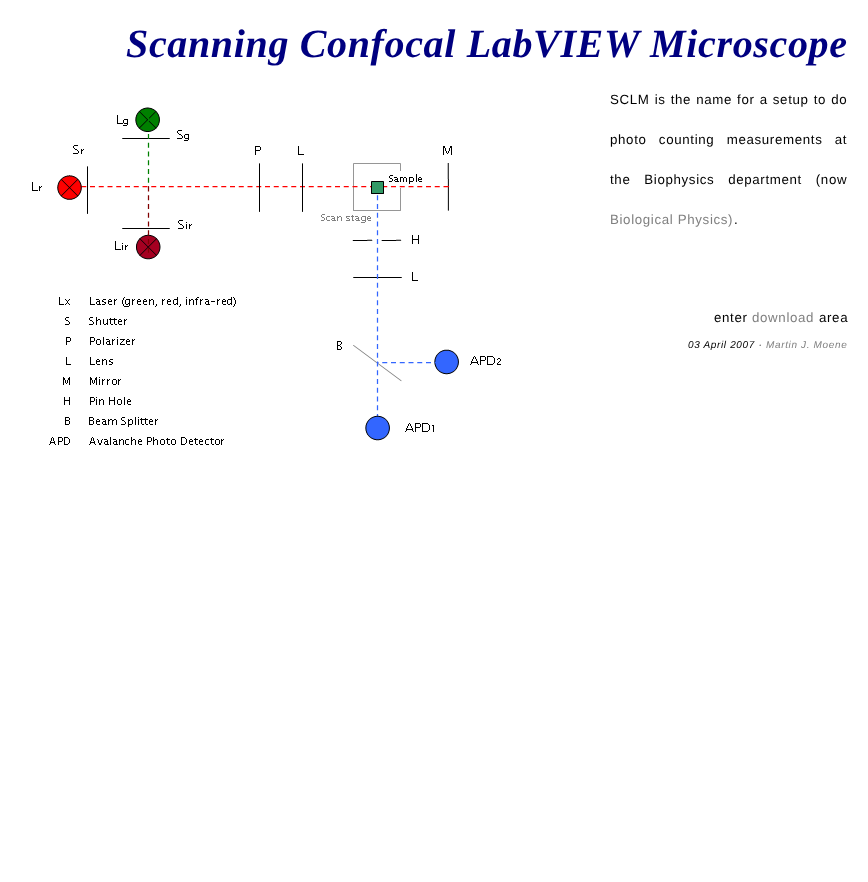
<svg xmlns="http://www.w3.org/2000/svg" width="868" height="882">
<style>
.a{font:italic bold 40px Liberation Serif;letter-spacing:0.65px;fill:#000080}
.b{font:13.3px Liberation Sans;letter-spacing:0.65px;fill:#000}
.c{font:13.3px Liberation Sans;letter-spacing:0.65px;fill:#808080}
.d{font:italic 10px Liberation Sans;letter-spacing:0.65px;fill:#000}
.e{font:italic 10px Liberation Sans;letter-spacing:0.65px;fill:#808080}
</style>
<rect width="100%" height="100%" fill="#fff"/>
<image href="1.png" x="32" y="107" width="469" height="338"/>
<text class="a" x="126" y="57">Scanning Confocal LabVIEW Microscope</text>
<text class="b" x="610" y="104" word-spacing="0.75">SCLM is the name for a setup to do</text>
<text class="b" x="610" y="144" word-spacing="8">photo counting measurements at</text>
<text class="b" x="610" y="184" word-spacing="9.5">the Biophysics department (now</text>
<text class="c" x="610" y="224">Biological Physics)</text>
<text class="b" x="734" y="224">.</text>
<text class="b" x="714" y="322">enter</text>
<text class="c" x="752" y="322">download</text>
<text class="b" x="819" y="322">area</text>
<text class="d" x="688" y="348">03 April 2007 ·</text>
<text class="e" x="766" y="348">Martin J. Moene</text>
</svg>
